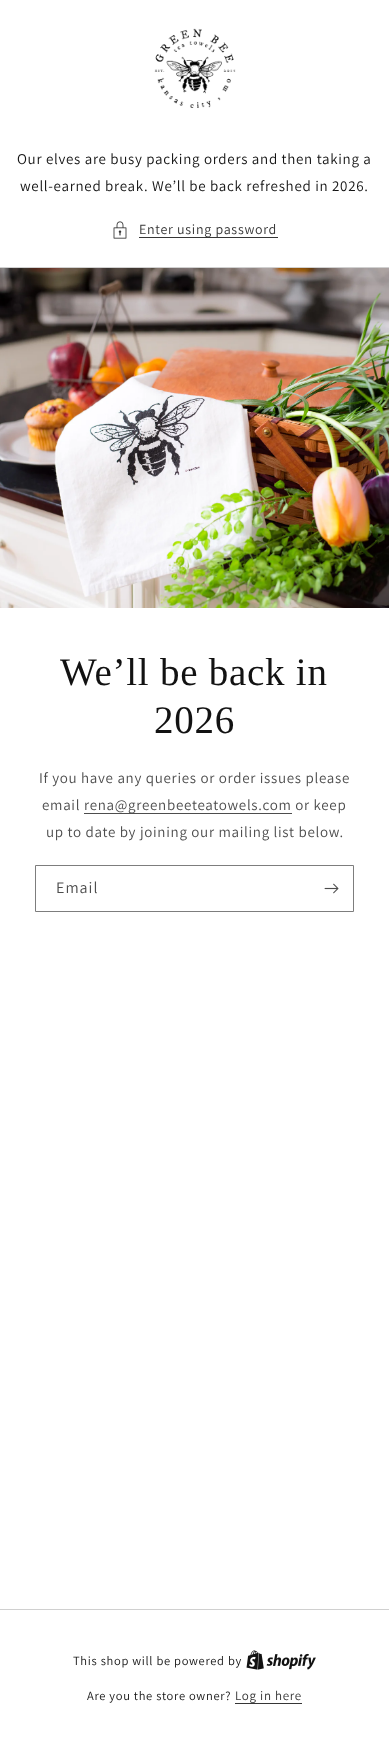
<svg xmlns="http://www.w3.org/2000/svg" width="389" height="1747">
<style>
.a{font:15px Assistant;letter-spacing:0.7px;fill:#121212}
.b{font:14px Assistant;letter-spacing:0.7px;fill:#363636}
.c{font:39px Liberation Serif;letter-spacing:0.75px;fill:#121212}
.d{font:15px Assistant;letter-spacing:0.7px;fill:#4d4d4d}
.e{font:16px Assistant;letter-spacing:1px;fill:#4d4d4d}
.f{font:12.5px Assistant;letter-spacing:0.7px;fill:#121212}
.g{font:13px Assistant;letter-spacing:0.7px;fill:#363636}
</style>
<rect width="100%" height="100%" fill="#fff"/>
<image href="1.png" x="154" y="28" width="82" height="80"/>
<image href="2.png" x="113" y="221" width="14" height="18"/>
<path fill="#363636" d="M139 237h139v1H139z"/>
<path fill="#d0d0d0" d="M0 267h389v1H0z"/>
<image href="3.png" x="0" y="268" width="389" height="340"/>
<path fill="#4d4d4d" d="M84 813h208v1H84z"/>
<path fill="none" stroke="#7d7d7d" d="M35.5 865.5h318v46H35.5z"/>
<image href="4.png" x="324" y="883" width="15" height="11"/>
<path fill="#d0d0d0" d="M0 1609h389v1H0z"/>
<image href="5.png" x="246" y="1650" width="70" height="20"/>
<path fill="#363636" d="M235 1703h67v1H235z"/>
<text class="a" x="17" y="164">Our elves are busy packing orders and then taking a</text>
<text class="a" x="20" y="191">well-earned break. We’ll be back refreshed in 2026.</text>
<text class="b" x="139" y="234">Enter using password</text>
<text class="c" x="60" y="685">We’ll be back in</text>
<text class="c" x="154" y="733">2026</text>
<text class="d" x="39" y="783">If you have any queries or order issues please</text>
<text class="d" x="42" y="810">email</text>
<text class="d" x="84" y="810">rena@greenbeeteatowels.com or keep</text>
<text class="d" x="46" y="837">up to date by joining our mailing list below.</text>
<text class="e" x="56" y="893">Email</text>
<text class="f" x="73" y="1665">This shop will be powered by</text>
<text class="f" x="87" y="1700">Are you the store owner?</text>
<text class="g" x="235" y="1700">Log in here</text>
</svg>
